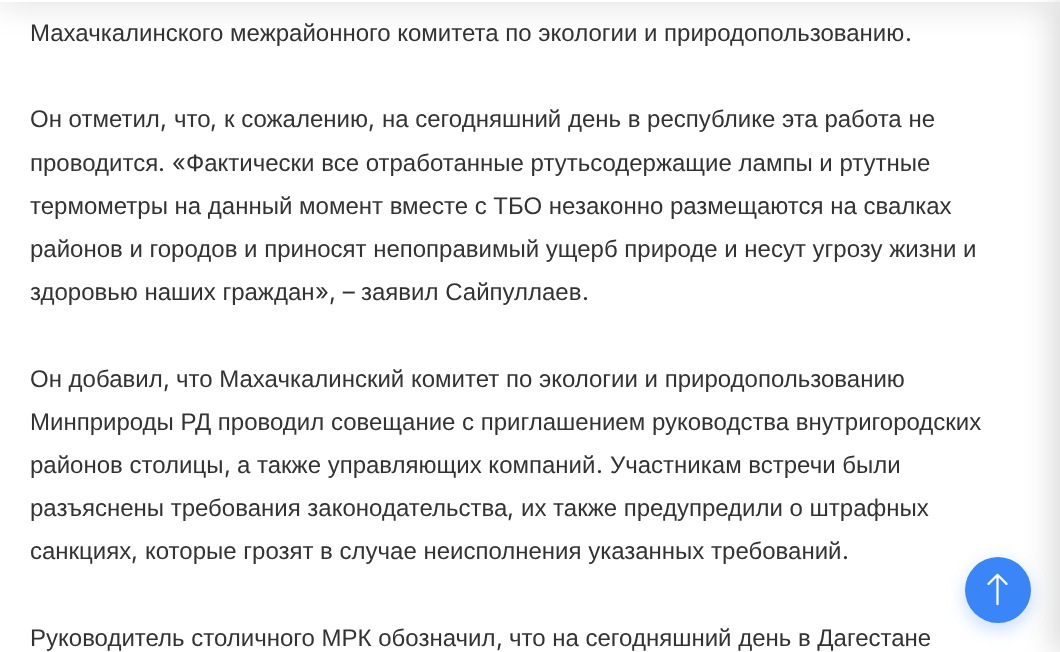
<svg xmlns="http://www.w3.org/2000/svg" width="1060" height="652">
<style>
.a{font:24px Liberation Sans;fill:#333}
.b{font:24px Inter;fill:#333}
</style>
<rect width="100%" height="100%" fill="#fff"/>
<path fill="#0000001a" filter="blur(15px)" d="M0 -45h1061v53H0z"/>
<path fill="#fff" d="M0 0h1060v2H0z"/>
<rect fill="#3a86f84d" filter="blur(9px)" x="965" y="563" width="66" height="66" rx="33"/>
<circle fill="#3a86f8" cx="998" cy="590" r="33"/>
<image href="1.png" x="987" y="573" width="21" height="33"/>
<path fill="#00000026" filter="blur(15px)" d="M1053 0h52v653H1053z"/>
<text class="a" x="30" y="41">Махачкалинского межрайонного комитета по экологии и природопользованию</text>
<text class="b" x="905" y="41">.</text>
<text class="a" x="30" y="127">Он отметил</text>
<text class="b" x="160" y="127">,</text>
<text class="a" x="174" y="127">что</text>
<text class="b" x="210" y="127">,</text>
<text class="a" x="224" y="127">к сожалению</text>
<text class="b" x="368" y="127">,</text>
<text class="a" x="382" y="127">на сегодняшний день в республике эта работа не</text>
<text class="a" x="30" y="171">проводится</text>
<text class="b" x="158" y="171">. «</text>
<text class="a" x="186" y="171">Фактически все отработанные ртутьсодержащие лампы и ртутные</text>
<text class="a" x="30" y="214">термометры на данный момент вместе с ТБО незаконно размещаются на свалках</text>
<text class="a" x="30" y="257">районов и городов и приносят непоправимый ущерб природе и несут угрозу жизни и</text>
<text class="a" x="30" y="300">здоровью наших граждан</text>
<text class="b" x="315" y="300">», –</text>
<text class="a" x="361" y="300">заявил Сайпуллаев</text>
<text class="b" x="582" y="300">.</text>
<text class="a" x="30" y="387">Он добавил</text>
<text class="b" x="163" y="387">,</text>
<text class="a" x="176" y="387">что Махачкалинский комитет по экологии и природопользованию</text>
<text class="a" x="30" y="430">Минприроды РД проводил совещание с приглашением руководства внутригородских</text>
<text class="a" x="30" y="473">районов столицы</text>
<text class="b" x="224" y="473">,</text>
<text class="a" x="237" y="473">а также управляющих компаний</text>
<text class="b" x="596" y="473">.</text>
<text class="a" x="610" y="473">Участникам встречи были</text>
<text class="a" x="30" y="516">разъяснены требования законодательства</text>
<text class="b" x="507" y="516">,</text>
<text class="a" x="521" y="516">их также предупредили о штрафных</text>
<text class="a" x="30" y="559">санкциях</text>
<text class="b" x="131" y="559">,</text>
<text class="a" x="145" y="559">которые грозят в случае неисполнения указанных требований</text>
<text class="b" x="842" y="559">.</text>
<text class="a" x="30" y="646">Руководитель столичного МРК обозначил</text>
<text class="b" x="496" y="646">,</text>
<text class="a" x="509" y="646">что на сегодняшний день в Дагестане</text>
</svg>
